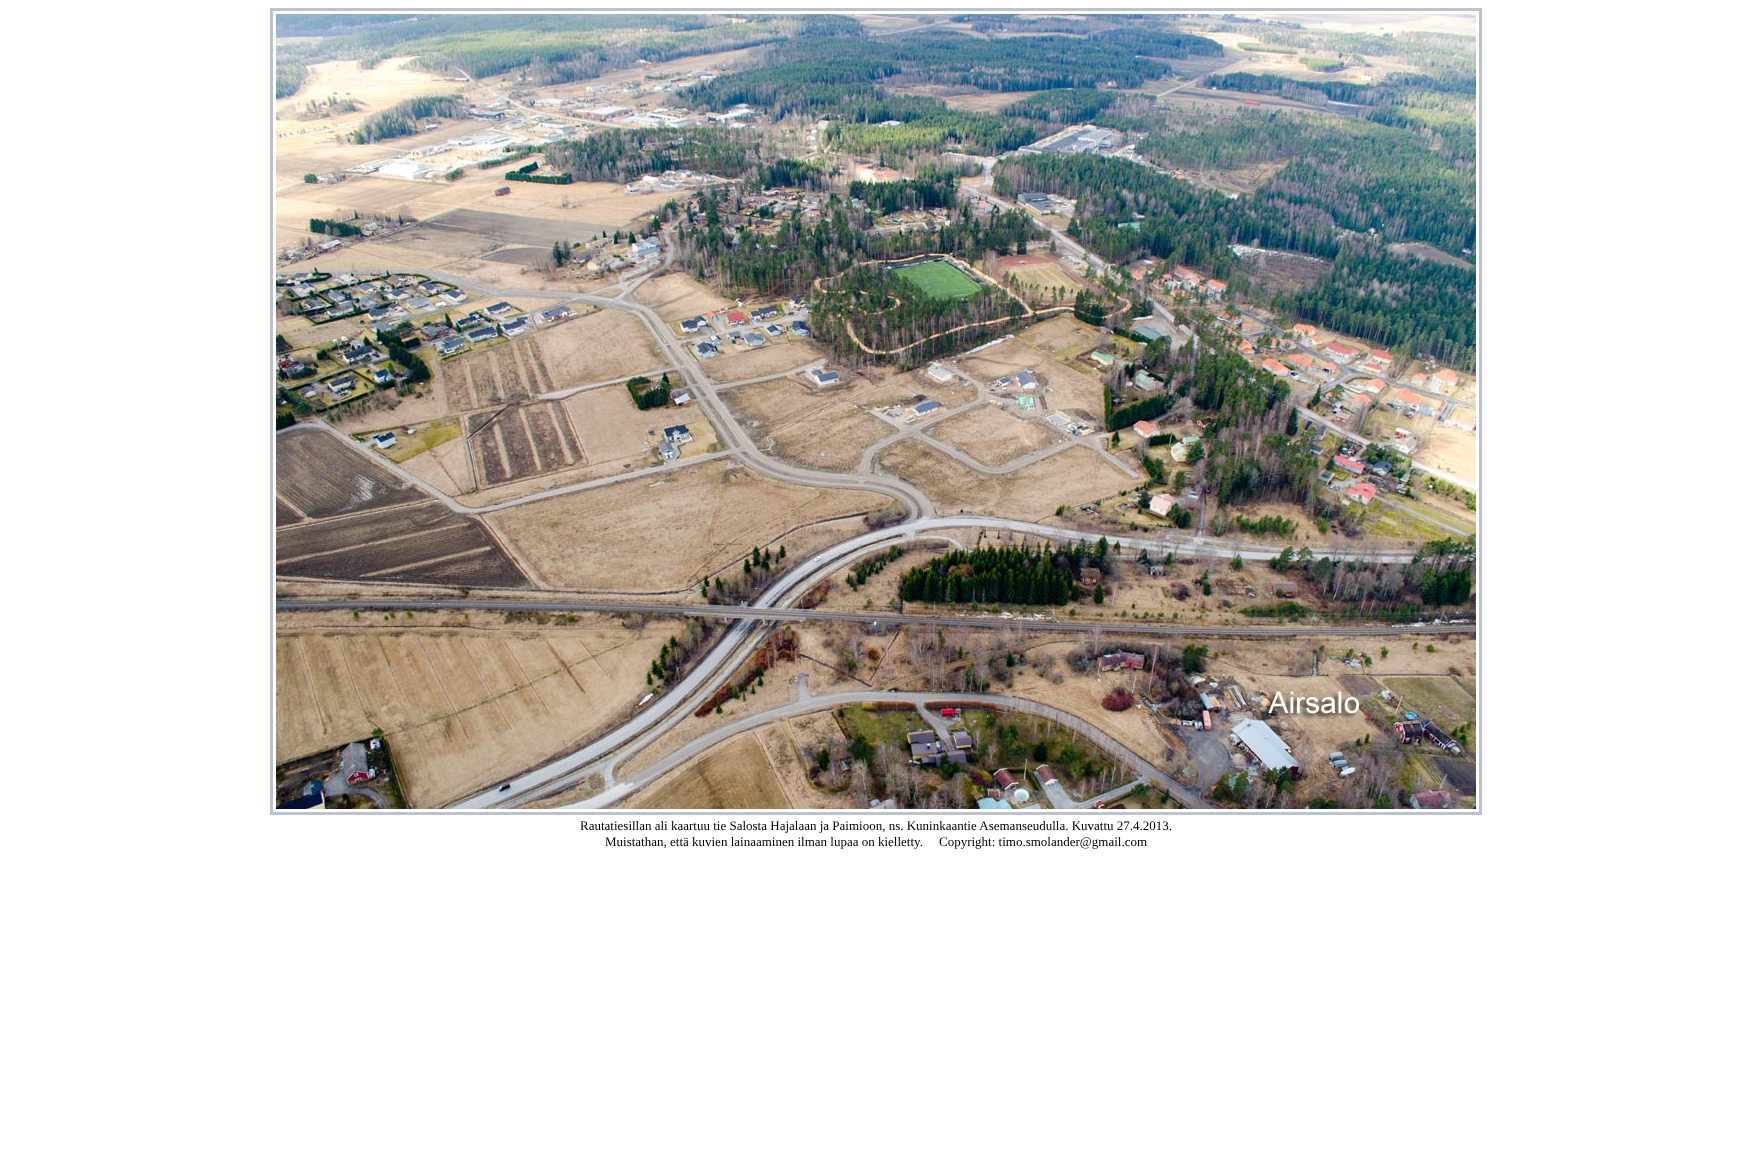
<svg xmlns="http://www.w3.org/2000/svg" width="1752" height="1175">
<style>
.a{font:13px Liberation Serif;fill:#000}
</style>
<rect width="100%" height="100%" fill="#fff"/>
<path fill="none" stroke="#bcc3cf" stroke-width="3" d="M271.5 9.5h1209v804H271.5z"/>
<image href="1.png" x="276" y="14" width="1200" height="795"/>
<text class="a" x="580" y="830">Rautatiesillan ali kaartuu tie Salosta Hajalaan ja Paimioon, ns. Kuninkaantie Asemanseudulla. Kuvattu 27.4.2013.</text>
<text class="a" x="605" y="846">Muistathan, että kuvien lainaaminen ilman lupaa on kielletty.</text>
<text class="a" x="939" y="846">Copyright: timo.smolander@gmail.com</text>
</svg>
